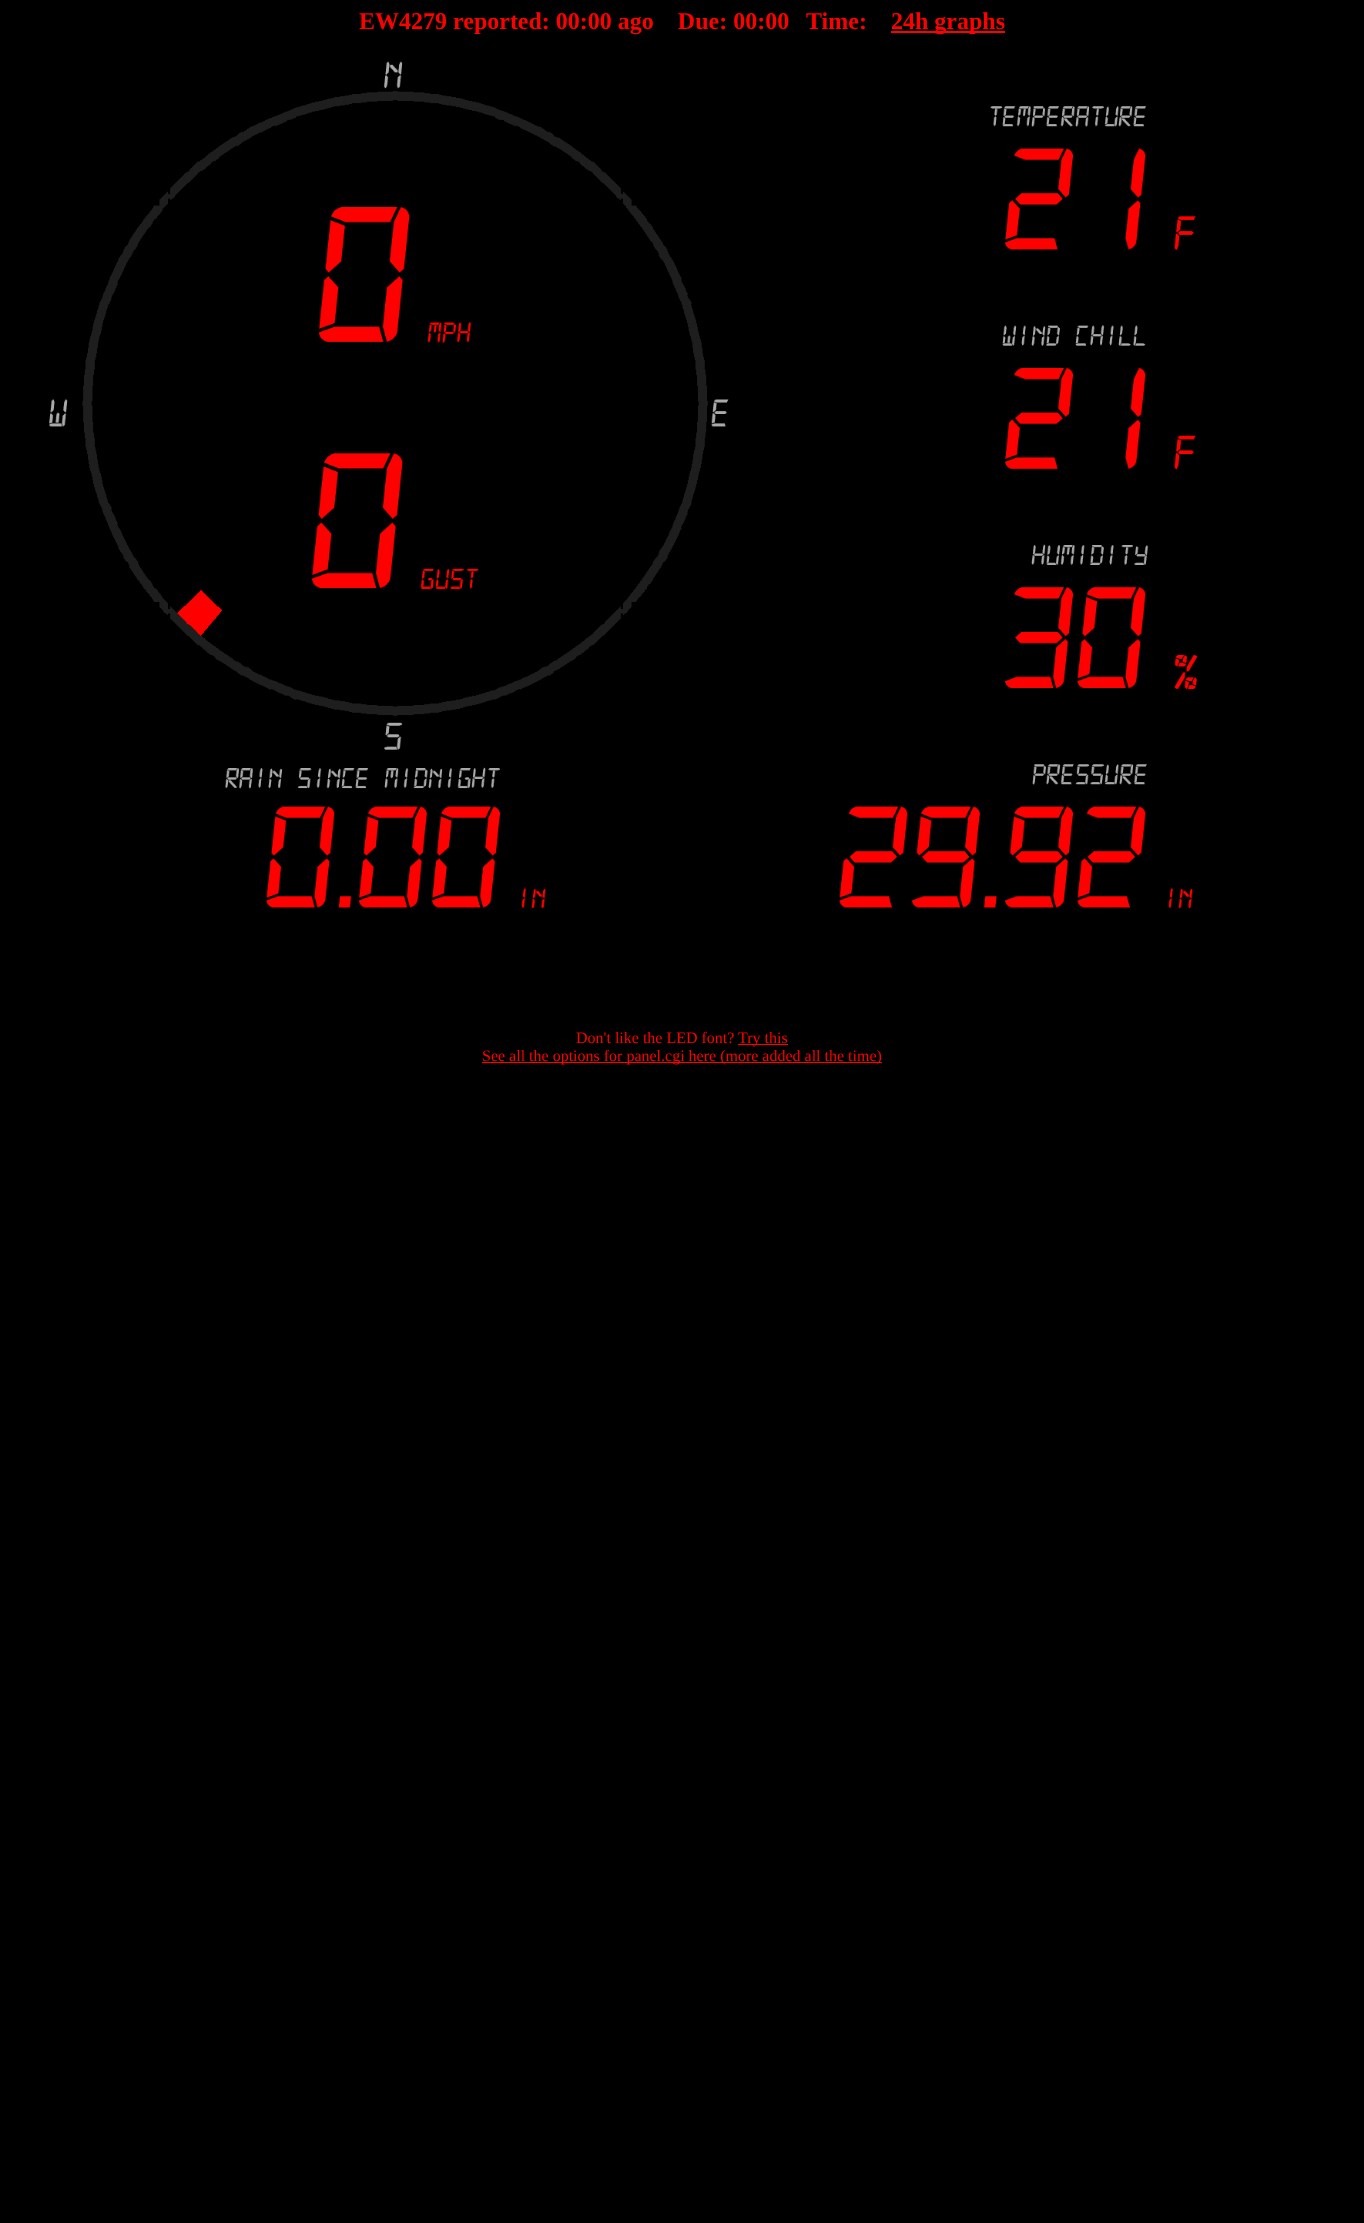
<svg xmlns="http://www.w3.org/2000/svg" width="1364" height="2223">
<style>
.a{font:bold 24px Liberation Serif;fill:#f00}
.b{font:16px Liberation Serif;fill:#f00}
</style>
<rect width="100%" height="100%" fill="#000"/>
<path fill="#f00" d="M891 31h114v2H891z"/>
<image href="1.png" x="49" y="61" width="1149" height="848"/>
<path fill="#f00" d="M738 1044h50v1H738z"/>
<path fill="#f00" d="M482 1062h400v1H482z"/>
<text class="a" xml:space="preserve" x="359" y="29">EW4279 reported: 00:00 ago    Due: 00:00</text>
<text class="a" x="806" y="29">Time:</text>
<text class="a" x="891" y="29">24h graphs</text>
<text class="b" x="576" y="1043">Don't like the LED font?</text>
<text class="b" x="738" y="1043">Try this</text>
<text class="b" x="482" y="1061">See all the options for panel.cgi here (more added all the time)</text>
</svg>
